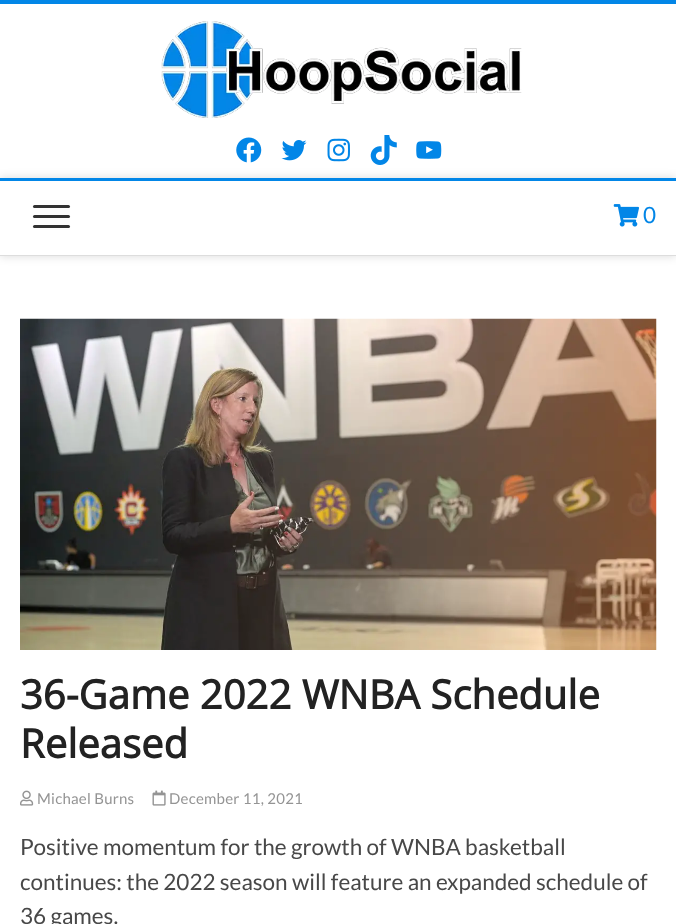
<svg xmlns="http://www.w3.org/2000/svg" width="676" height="924">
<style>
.a{font:22.5px Lato;fill:#0286e7}
.b{font:bold 40px Open Sans;fill:#222}
.c{font:15px Lato;letter-spacing:0.25px;fill:#949494}
.d{font:22.5px Lato;fill:#484848}
</style>
<defs>
<clipPath id="clip1"><path d="M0 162h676v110h-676zm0 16h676v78h-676z" clip-rule="evenodd"/></clipPath>
</defs>
<rect width="100%" height="100%" fill="#fff"/>
<path fill="#0286e7" d="M0 0h676v4H0z"/>
<image href="1.png" x="161" y="21" width="361" height="97"/>
<image href="2.png" x="236" y="137" width="26" height="26"/>
<image href="3.png" x="281" y="140" width="26" height="21"/>
<image href="4.png" x="327" y="138" width="23" height="24"/>
<image href="5.png" x="370" y="135" width="27" height="30"/>
<image href="6.png" x="416" y="141" width="26" height="18"/>
<g clip-path="url(#clip1)">
<path fill="#00000026" filter="blur(5px)" d="M0 178h676v78H0z"/>
</g>
<path fill="#0286e7" d="M0 178h676v3H0z"/>
<path fill="#ddd" d="M0 255h676v1H0z"/>
<rect fill="#333" x="33" y="215" width="37" height="3" rx="1.5"/>
<rect fill="#333" x="33" y="205" width="37" height="3" rx="1.5"/>
<rect fill="#333" x="33" y="225" width="37" height="3" rx="1.5"/>
<image href="7.png" x="613" y="204" width="26" height="23"/>
<image href="8.png" x="20" y="318" width="637" height="332"/>
<image href="9.png" x="20" y="790" width="14" height="16"/>
<image href="10.png" x="152" y="790" width="14" height="16"/>
<text class="a" x="643" y="223">0</text>
<text class="b" x="20" y="709">36-Game 2022 WNBA Schedule</text>
<text class="b" x="20" y="758">Released</text>
<text class="c" x="37" y="804">Michael Burns</text>
<text class="c" x="169" y="804">December 11, 2021</text>
<text class="d" x="20" y="855">Positive momentum for the growth of WNBA basketball</text>
<text class="d" x="20" y="890">continues: the 2022 season will feature an expanded schedule of</text>
<text class="d" x="20" y="924">36 games.</text>
</svg>
